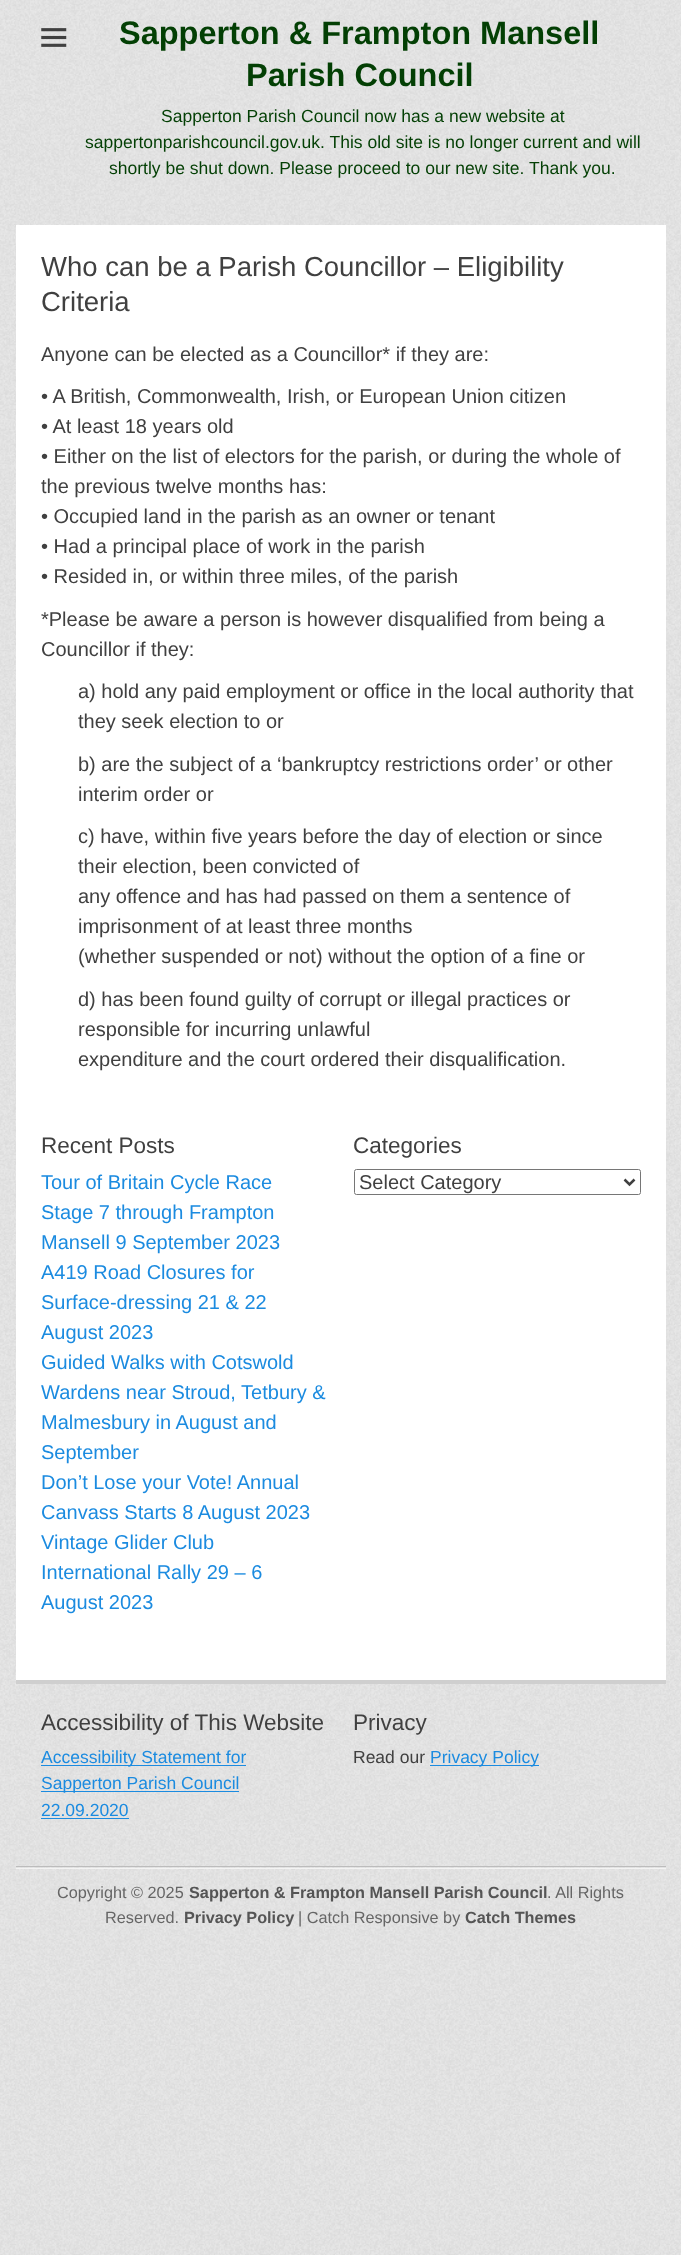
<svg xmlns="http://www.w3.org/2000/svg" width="681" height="2255">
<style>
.a{font:bold 32.5px Liberation Sans;fill:#033f04}
.b{font:17.5px Liberation Sans;fill:#033f04}
.c{font:27.5px Liberation Sans;fill:#404040}
.d{font:20px Liberation Sans;fill:#404040}
.e{font:22.5px Liberation Sans;fill:#404040}
.f{font:20px Liberation Sans;fill:#1b8be0}
.g{font:17.5px Liberation Sans;fill:#1b8be0}
.h{font:17.5px Liberation Sans;fill:#404040}
.i{font:16.25px Liberation Sans;fill:#666}
.j{font:bold 16.25px Liberation Sans;fill:#555}
</style>
<rect width="100%" height="100%" fill="#fff"/>
<image href="1.png" x="0" y="0" width="681" height="2255"/>
<image href="2.png" x="41" y="28" width="26" height="19"/>
<path fill="#fff" d="M16 225h650v1455H16z"/>
<rect fill="none" stroke="#767676" x="354.5" y="1169.5" width="286" height="25" rx="2"/>
<path fill="none" stroke="#404040" stroke-width="2.5" d="M624.5 1179.5l5 5l5-5"/>
<path fill="#cfcfcf" d="M16 1680h650v4H16z"/>
<path fill="#bcbcbc" d="M16 1866h650v1H16z"/>
<path fill="#1b8be0" d="M41 1765h205v1H41z"/>
<path fill="#1b8be0" d="M41 1791h198v1H41z"/>
<path fill="#1b8be0" d="M41 1818h88v1H41z"/>
<path fill="#1b8be0" d="M430 1765h109v1H430z"/>
<path fill="#f4f4f4" d="M16 1868h650v1H16z"/>
<text class="a" x="119" y="44">Sapperton &amp; Frampton Mansell</text>
<text class="a" x="246" y="86">Parish Council</text>
<text class="b" x="161" y="122">Sapperton Parish Council now has a new website at</text>
<text class="b" x="85" y="148">sappertonparishcouncil.gov.uk. This old site is no longer current and will</text>
<text class="b" x="109" y="174">shortly be shut down. Please proceed to our new site.</text>
<text class="b" x="529" y="174">Thank you.</text>
<text class="c" x="41" y="276">Who can be a Parish Councillor – Eligibility</text>
<text class="c" x="41" y="311">Criteria</text>
<text class="d" x="41" y="361">Anyone can be elected as a Councillor* if they are:</text>
<text class="d" x="41" y="403">• A British, Commonwealth, Irish, or European Union citizen</text>
<text class="d" x="41" y="433">• At least 18 years old</text>
<text class="d" x="41" y="463">• Either on the list of electors for the parish, or during the whole of</text>
<text class="d" x="41" y="493">the previous twelve months has:</text>
<text class="d" x="41" y="523">• Occupied land in the parish as an owner or tenant</text>
<text class="d" x="41" y="553">• Had a principal place of work in the parish</text>
<text class="d" x="41" y="583">• Resided in, or within three miles, of the parish</text>
<text class="d" x="41" y="626">*Please be aware a person is however disqualified from being a</text>
<text class="d" x="41" y="656">Councillor if they:</text>
<text class="d" x="78" y="698">a) hold any paid employment or office in the local authority that</text>
<text class="d" x="78" y="728">they seek election to or</text>
<text class="d" x="78" y="771">b) are the subject of a ‘bankruptcy restrictions order’ or other</text>
<text class="d" x="78" y="801">interim order or</text>
<text class="d" x="78" y="843">c) have, within five years before the day of election or since</text>
<text class="d" x="78" y="873">their election, been convicted of</text>
<text class="d" x="78" y="903">any offence and has had passed on them a sentence of</text>
<text class="d" x="78" y="933">imprisonment of at least three months</text>
<text class="d" x="78" y="963">(whether suspended or not) without the option of a fine or</text>
<text class="d" x="78" y="1006">d) has been found guilty of corrupt or illegal practices or</text>
<text class="d" x="78" y="1036">responsible for incurring unlawful</text>
<text class="d" x="78" y="1066">expenditure and the court ordered their disqualification.</text>
<text class="e" x="41" y="1153">Recent Posts</text>
<text class="f" x="41" y="1189">Tour of Britain Cycle Race</text>
<text class="f" x="41" y="1219">Stage 7 through Frampton</text>
<text class="f" x="41" y="1249">Mansell 9 September 2023</text>
<text class="f" x="41" y="1279">A419 Road Closures for</text>
<text class="f" x="41" y="1309">Surface-dressing 21 &amp; 22</text>
<text class="f" x="41" y="1339">August 2023</text>
<text class="f" x="41" y="1369">Guided Walks with Cotswold</text>
<text class="f" x="41" y="1399">Wardens near Stroud, Tetbury &amp;</text>
<text class="f" x="41" y="1429">Malmesbury in August and</text>
<text class="f" x="41" y="1459">September</text>
<text class="f" x="41" y="1489">Don’t Lose your Vote! Annual</text>
<text class="f" x="41" y="1519">Canvass Starts 8 August 2023</text>
<text class="f" x="41" y="1549">Vintage Glider Club</text>
<text class="f" x="41" y="1579">International Rally 29 – 6</text>
<text class="f" x="41" y="1609">August 2023</text>
<text class="e" x="353" y="1153">Categories</text>
<text class="d" x="359" y="1189">Select Category</text>
<text class="e" x="41" y="1730">Accessibility of This Website</text>
<text class="g" x="41" y="1763">Accessibility Statement for</text>
<text class="g" x="41" y="1789">Sapperton Parish Council</text>
<text class="g" x="41" y="1816">22.09.2020</text>
<text class="e" x="353" y="1730">Privacy</text>
<text class="h" x="353" y="1763">Read our</text>
<text class="g" x="430" y="1763">Privacy Policy</text>
<text class="i" x="57" y="1898">Copyright © 2025</text>
<text class="j" x="189" y="1898">Sapperton &amp; Frampton Mansell Parish Council</text>
<text class="i" x="547" y="1898">. All Rights</text>
<text class="i" x="105" y="1923">Reserved.</text>
<text class="j" x="184" y="1923">Privacy Policy</text>
<text class="i" x="298" y="1923">| Catch Responsive by</text>
<text class="j" x="465" y="1923">Catch Themes</text>
</svg>
